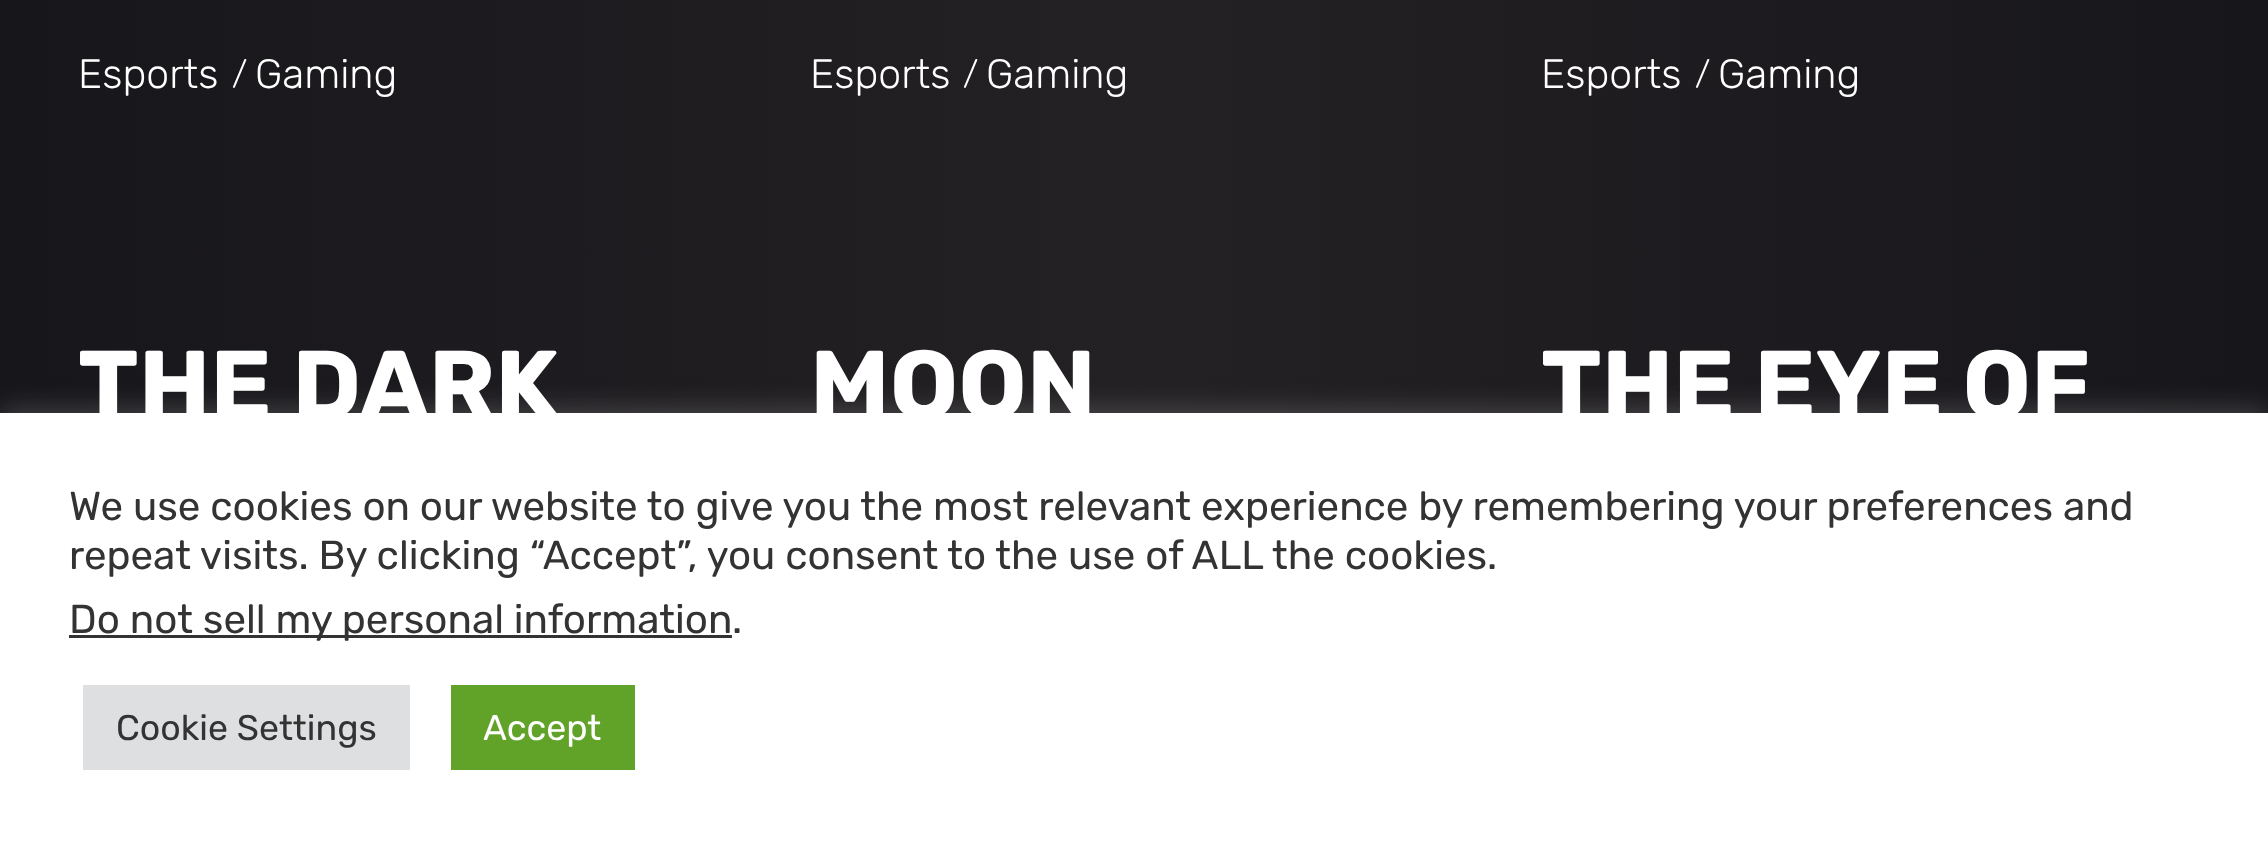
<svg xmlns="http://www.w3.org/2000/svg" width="2268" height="850">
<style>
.a{font:300 41px Rubik;fill:#fff}
.b{font:300 33px Rubik;fill:#fff}
.c{font:bold 96.25px Rubik;fill:#fff}
.d{font:40.33px Rubik;fill:#333}
.e{font:35.75px Rubik;fill:#333}
.f{font:35.75px Rubik;fill:#fff}
</style>
<defs>
<linearGradient id="g1" gradientUnits="userSpaceOnUse" x1="0" y1="-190" x2="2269" y2="-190"><stop offset="0" stop-color="#17161a"/><stop offset="0.5" stop-color="#242124"/><stop offset="1" stop-color="#17161a"/></linearGradient>
</defs>
<rect width="100%" height="100%" fill="#fff"/>
<path fill="url(#g1)" d="M0 0h2268v413H0z"/>
<path fill="#acabab4d" filter="blur(14px)" d="M0 410h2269v440H0z"/>
<path fill="#fff" d="M0 413h2268v437H0z"/>
<path fill="#333" d="M69 635h663v3H69z"/>
<path fill="#dedfe0" d="M83 685h327v85H83z"/>
<path fill="#61a229" d="M451 685h184v85H451z"/>
<text class="a" x="78" y="88">Esports</text>
<text class="b" x="232" y="85">/</text>
<text class="a" x="255" y="88">Gaming</text>
<text class="a" x="810" y="88">Esports</text>
<text class="b" x="963" y="85">/</text>
<text class="a" x="986" y="88">Gaming</text>
<text class="a" x="1541" y="88">Esports</text>
<text class="b" x="1695" y="85">/</text>
<text class="a" x="1718" y="88">Gaming</text>
<text class="c" x="78" y="418">THE DARK</text>
<text class="c" x="810" y="418">MOON</text>
<text class="c" x="1541" y="418" word-spacing="-1">THE EYE OF</text>
<text class="d" x="69" y="520">We use cookies on our website to give you the most relevant experience by remembering your preferences and</text>
<text class="d" x="69" y="569">repeat visits. By clicking “Accept”, you consent to the use of ALL the cookies.</text>
<text class="d" x="69" y="633">Do not sell my personal information</text>
<text class="d" x="732" y="633">.</text>
<text class="e" x="116" y="740">Cookie Settings</text>
<text class="f" x="483" y="740">Accept</text>
</svg>
